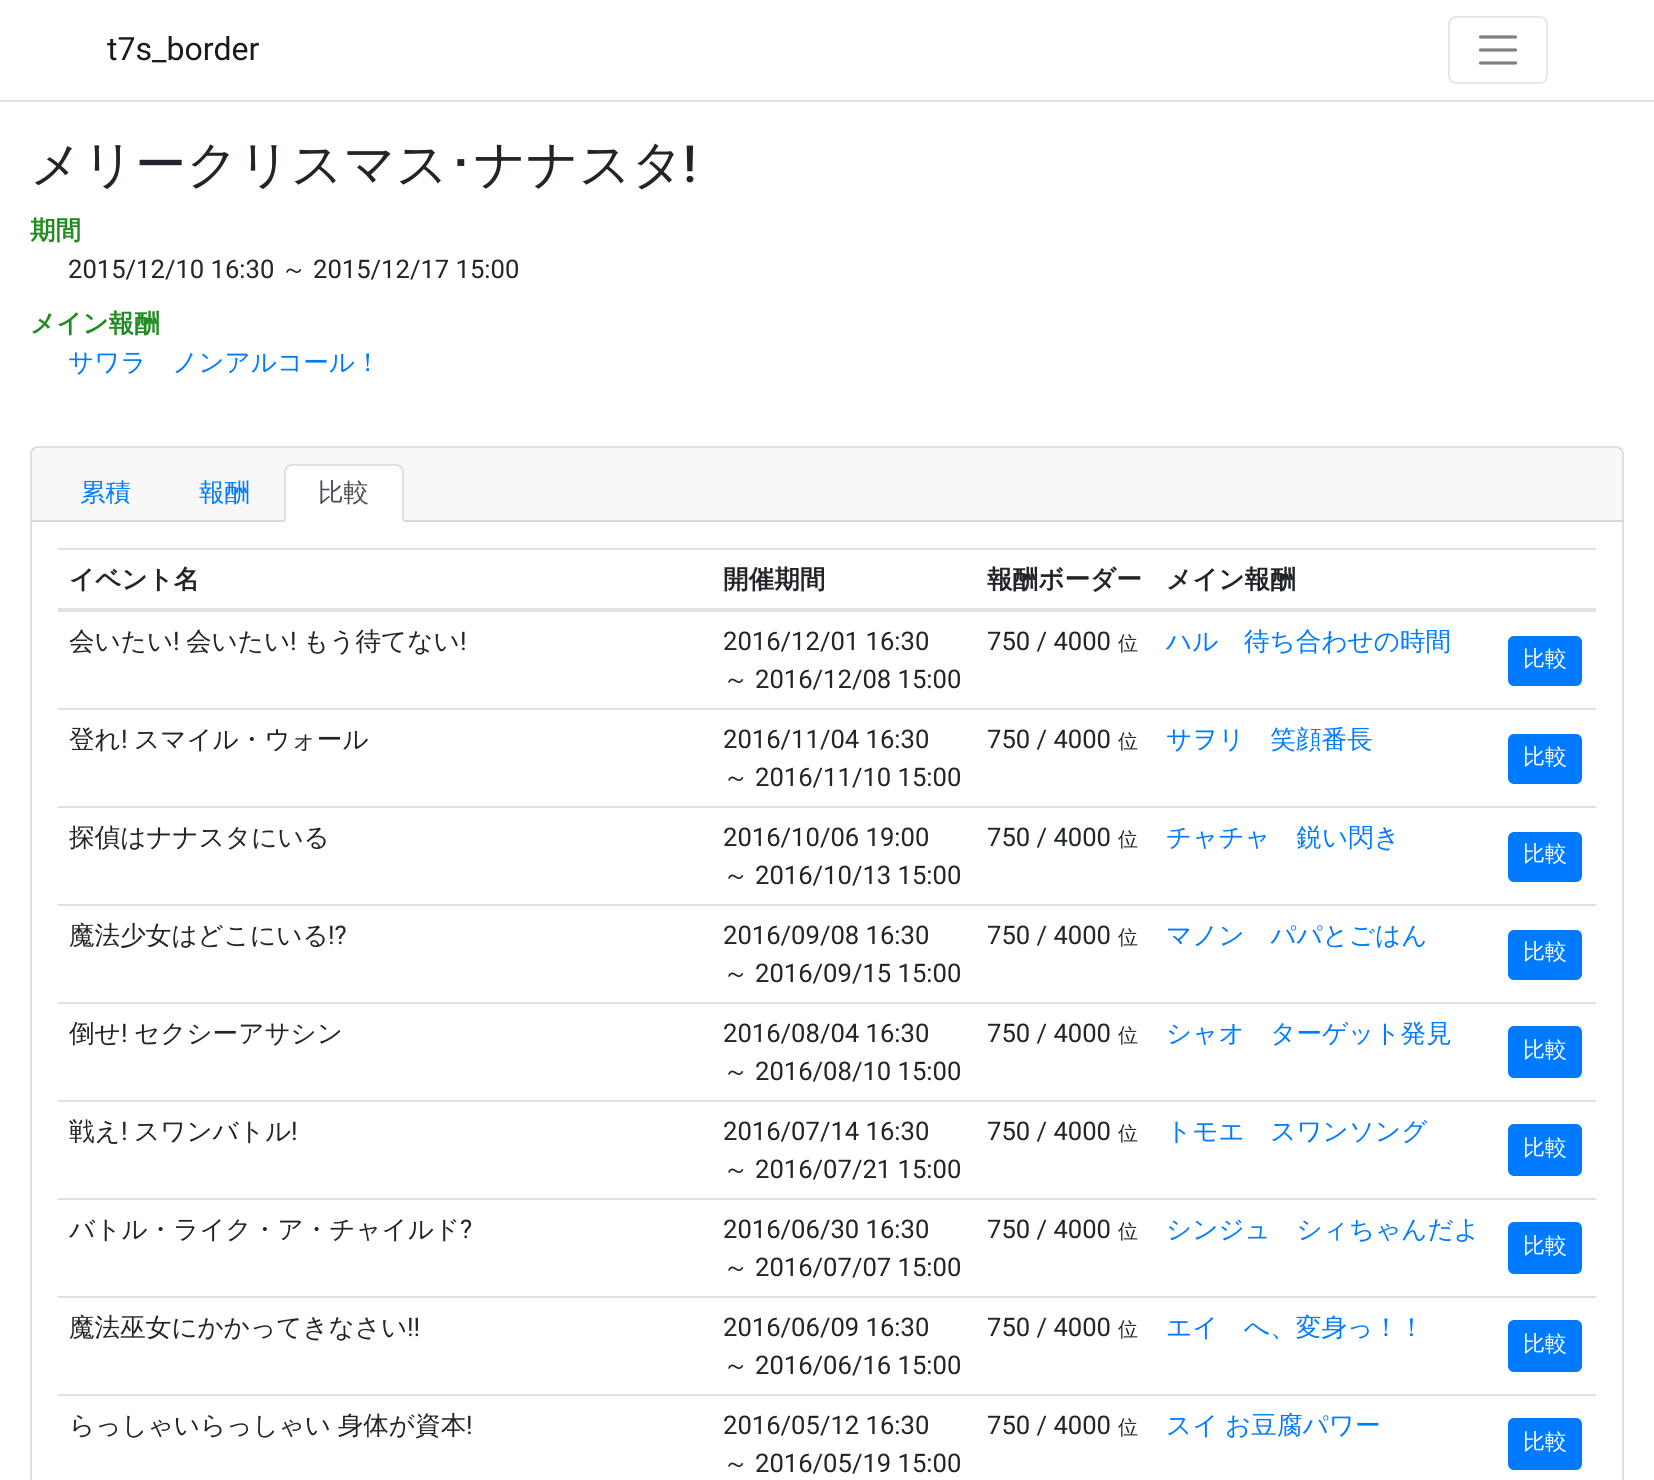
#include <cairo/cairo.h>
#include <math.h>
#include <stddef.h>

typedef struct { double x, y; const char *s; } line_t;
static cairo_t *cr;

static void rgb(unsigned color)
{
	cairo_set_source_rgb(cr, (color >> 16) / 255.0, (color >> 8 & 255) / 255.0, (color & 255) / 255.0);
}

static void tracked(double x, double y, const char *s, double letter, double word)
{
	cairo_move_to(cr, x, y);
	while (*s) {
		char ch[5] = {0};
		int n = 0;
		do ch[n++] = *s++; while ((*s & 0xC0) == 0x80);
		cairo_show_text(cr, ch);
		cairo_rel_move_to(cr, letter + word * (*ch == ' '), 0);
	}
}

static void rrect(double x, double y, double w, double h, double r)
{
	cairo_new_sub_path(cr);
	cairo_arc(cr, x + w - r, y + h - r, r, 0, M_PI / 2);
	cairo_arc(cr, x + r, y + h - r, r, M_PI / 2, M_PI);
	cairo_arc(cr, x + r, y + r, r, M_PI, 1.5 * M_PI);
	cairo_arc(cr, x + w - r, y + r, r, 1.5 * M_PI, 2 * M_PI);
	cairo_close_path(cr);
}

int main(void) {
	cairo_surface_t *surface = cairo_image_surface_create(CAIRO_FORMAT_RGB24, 1654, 1480);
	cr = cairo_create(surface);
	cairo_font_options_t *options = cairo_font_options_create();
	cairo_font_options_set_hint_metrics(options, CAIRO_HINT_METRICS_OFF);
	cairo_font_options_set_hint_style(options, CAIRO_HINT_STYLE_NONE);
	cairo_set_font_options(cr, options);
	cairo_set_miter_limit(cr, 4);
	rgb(0xffffff);
	cairo_paint(cr);
	rgb(0xdee2e6);
	cairo_rectangle(cr, 0, 100, 1654, 2);
	cairo_fill(cr);
	rrect(1449, 17, 98, 66, 7);
	rgb(0xe6e6e6);
	cairo_stroke(cr);
	cairo_new_path(cr);
	cairo_move_to(cr, 1480.5, 37);
	cairo_line_to(cr, 1515.5, 37);
	cairo_move_to(cr, 1480.5, 50);
	cairo_line_to(cr, 1515.5, 50);
	cairo_move_to(cr, 1480.5, 63);
	cairo_line_to(cr, 1515.5, 63);
	rgb(0x808080);
	cairo_set_line_width(cr, 3.2);
	cairo_set_line_cap(cr, CAIRO_LINE_CAP_ROUND);
	cairo_stroke(cr);
	rrect(31, 447, 1592, 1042, 7);
	rgb(0xdfdfdf);
	cairo_set_line_width(cr, 2);
	cairo_set_line_cap(cr, CAIRO_LINE_CAP_BUTT);
	cairo_stroke(cr);
	cairo_set_source_rgba(cr, 0, 0, 0, 0.03);
	cairo_rectangle(cr, 32, 448, 1590, 72);
	cairo_fill(cr);
	rgb(0xd8d8d8);
	cairo_rectangle(cr, 32, 520, 1590, 2);
	cairo_fill(cr);
	rgb(0xffffff);
	cairo_new_path(cr);
	cairo_move_to(cr, 292, 464);
	cairo_line_to(cr, 396, 464);
	cairo_curve_to(cr, 400.5, 464, 404, 467.5, 404, 472);
	cairo_line_to(cr, 404, 522);
	cairo_line_to(cr, 284, 522);
	cairo_line_to(cr, 284, 472);
	cairo_curve_to(cr, 284, 467.5, 287.5, 464, 292, 464);
	cairo_close_path(cr);
	cairo_fill(cr);
	rgb(0xdee2e6);
	cairo_new_path(cr);
	cairo_move_to(cr, 292, 464);
	cairo_curve_to(cr, 290, 464, 288, 465, 286, 466);
	cairo_line_to(cr, 288, 468);
	cairo_line_to(cr, 291, 466);
	cairo_line_to(cr, 397, 466);
	cairo_line_to(cr, 400, 468);
	cairo_line_to(cr, 402, 466);
	cairo_curve_to(cr, 400, 465, 398, 464, 396, 464);
	cairo_close_path(cr);
	cairo_fill(cr);
	cairo_new_path(cr);
	cairo_move_to(cr, 404, 522);
	cairo_line_to(cr, 404, 472);
	cairo_curve_to(cr, 404, 470, 403, 468, 402, 466);
	cairo_line_to(cr, 400, 468);
	cairo_curve_to(cr, 401, 469, 402, 470, 402, 472);
	cairo_line_to(cr, 402, 520);
	cairo_close_path(cr);
	cairo_fill(cr);
	rgb(0xffffff);
	cairo_new_path(cr);
	cairo_move_to(cr, 404, 522);
	cairo_line_to(cr, 402, 520);
	cairo_line_to(cr, 286, 520);
	cairo_line_to(cr, 284, 522);
	cairo_close_path(cr);
	cairo_fill(cr);
	rgb(0xdee2e6);
	cairo_new_path(cr);
	cairo_move_to(cr, 284, 522);
	cairo_line_to(cr, 286, 520);
	cairo_line_to(cr, 286, 472);
	cairo_curve_to(cr, 286, 470, 287, 469, 288, 468);
	cairo_line_to(cr, 286, 466);
	cairo_curve_to(cr, 285, 468, 284, 470, 284, 472);
	cairo_close_path(cr);
	cairo_fill(cr);
	cairo_rectangle(cr, 58, 548, 1538, 2);
	cairo_fill(cr);
	cairo_rectangle(cr, 58, 608, 1538, 4);
	cairo_fill(cr);
	rgb(0x007bff);
	rrect(1509, 637, 72, 48, 5);
	cairo_fill_preserve(cr);
	cairo_stroke(cr);
	rgb(0xdee2e6);
	cairo_rectangle(cr, 58, 708, 1538, 2);
	cairo_fill(cr);
	rgb(0x007bff);
	rrect(1509, 735, 72, 48, 5);
	cairo_fill_preserve(cr);
	cairo_stroke(cr);
	rgb(0xdee2e6);
	cairo_rectangle(cr, 58, 806, 1538, 2);
	cairo_fill(cr);
	rgb(0x007bff);
	rrect(1509, 833, 72, 48, 5);
	cairo_fill_preserve(cr);
	cairo_stroke(cr);
	rgb(0xdee2e6);
	cairo_rectangle(cr, 58, 904, 1538, 2);
	cairo_fill(cr);
	rgb(0x007bff);
	rrect(1509, 931, 72, 48, 5);
	cairo_fill_preserve(cr);
	cairo_stroke(cr);
	rgb(0xdee2e6);
	cairo_rectangle(cr, 58, 1002, 1538, 2);
	cairo_fill(cr);
	rgb(0x007bff);
	rrect(1509, 1027, 72, 50, 5);
	cairo_fill_preserve(cr);
	cairo_stroke(cr);
	rgb(0xdee2e6);
	cairo_rectangle(cr, 58, 1100, 1538, 2);
	cairo_fill(cr);
	rgb(0x007bff);
	rrect(1509, 1125, 72, 50, 5);
	cairo_fill_preserve(cr);
	cairo_stroke(cr);
	rgb(0xdee2e6);
	cairo_rectangle(cr, 58, 1198, 1538, 2);
	cairo_fill(cr);
	rgb(0x007bff);
	rrect(1509, 1223, 72, 50, 5);
	cairo_fill_preserve(cr);
	cairo_stroke(cr);
	rgb(0xdee2e6);
	cairo_rectangle(cr, 58, 1296, 1538, 2);
	cairo_fill(cr);
	rgb(0x007bff);
	rrect(1509, 1321, 72, 50, 5);
	cairo_fill_preserve(cr);
	cairo_stroke(cr);
	rgb(0xdee2e6);
	cairo_rectangle(cr, 58, 1394, 1538, 2);
	cairo_fill(cr);
	rgb(0x007bff);
	rrect(1509, 1419, 72, 50, 5);
	cairo_fill_preserve(cr);
	cairo_stroke(cr);
	cairo_select_font_face(cr, "Roboto", CAIRO_FONT_SLANT_NORMAL, CAIRO_FONT_WEIGHT_NORMAL);
	cairo_set_font_size(cr, 32);
	rgb(0x1a1a1a);
	cairo_move_to(cr, 107, 60);
	cairo_show_text(cr, "t7s_border");
	cairo_select_font_face(cr, "WenQuanYi Zen Hei Medium", CAIRO_FONT_SLANT_NORMAL, CAIRO_FONT_WEIGHT_NORMAL);
	cairo_set_font_size(cr, 51.25);
	rgb(0x212529);
	cairo_move_to(cr, 30, 182);
	cairo_show_text(cr, "メリークリスマス");
	cairo_select_font_face(cr, "IPAGothic", CAIRO_FONT_SLANT_NORMAL, CAIRO_FONT_WEIGHT_NORMAL);
	cairo_move_to(cr, 448, 182);
	cairo_show_text(cr, "･");
	cairo_select_font_face(cr, "WenQuanYi Zen Hei Medium", CAIRO_FONT_SLANT_NORMAL, CAIRO_FONT_WEIGHT_NORMAL);
	cairo_move_to(cr, 474, 182);
	cairo_show_text(cr, "ナナスタ");
	cairo_select_font_face(cr, "Roboto Medium", CAIRO_FONT_SLANT_NORMAL, CAIRO_FONT_WEIGHT_NORMAL);
	cairo_move_to(cr, 683, 182);
	cairo_show_text(cr, "!");
	cairo_select_font_face(cr, "WenQuanYi Zen Hei", CAIRO_FONT_SLANT_NORMAL, CAIRO_FONT_WEIGHT_BOLD);
	cairo_set_font_size(cr, 25.6);
	rgb(0x228b22);
	cairo_move_to(cr, 30, 239);
	cairo_show_text(cr, "期間");
	cairo_select_font_face(cr, "Roboto", CAIRO_FONT_SLANT_NORMAL, CAIRO_FONT_WEIGHT_NORMAL);
	rgb(0x212529);
	cairo_move_to(cr, 68, 278);
	cairo_show_text(cr, "2015/12/10 16:30");
	cairo_select_font_face(cr, "WenQuanYi Zen Hei Medium", CAIRO_FONT_SLANT_NORMAL, CAIRO_FONT_WEIGHT_NORMAL);
	cairo_move_to(cr, 281, 278);
	cairo_show_text(cr, "～");
	cairo_select_font_face(cr, "Roboto", CAIRO_FONT_SLANT_NORMAL, CAIRO_FONT_WEIGHT_NORMAL);
	cairo_move_to(cr, 313, 278);
	cairo_show_text(cr, "2015/12/17 15:00");
	cairo_select_font_face(cr, "WenQuanYi Zen Hei", CAIRO_FONT_SLANT_NORMAL, CAIRO_FONT_WEIGHT_BOLD);
	rgb(0x228b22);
	cairo_move_to(cr, 30, 332);
	cairo_show_text(cr, "メイン報酬");
	cairo_select_font_face(cr, "WenQuanYi Zen Hei Medium", CAIRO_FONT_SLANT_NORMAL, CAIRO_FONT_WEIGHT_NORMAL);
	rgb(0x007bff);
	{
		static const line_t items[] = {
			{68, 371, "サワラ　ノンアルコール！"},
			{80, 501, "累積"},
			{199, 501, "報酬"},
		};
		for (size_t i = 0; i < sizeof items / sizeof *items; i++) {
			cairo_move_to(cr, items[i].x, items[i].y);
			cairo_show_text(cr, items[i].s);
		}
	}
	rgb(0x495057);
	cairo_move_to(cr, 318, 501);
	cairo_show_text(cr, "比較");
	cairo_select_font_face(cr, "WenQuanYi Zen Hei", CAIRO_FONT_SLANT_NORMAL, CAIRO_FONT_WEIGHT_BOLD);
	rgb(0x212529);
	{
		static const line_t items[] = {
			{69, 588, "イベント名"},
			{723, 588, "開催期間"},
			{987, 588, "報酬ボーダー"},
			{1166, 588, "メイン報酬"},
		};
		for (size_t i = 0; i < sizeof items / sizeof *items; i++) {
			cairo_move_to(cr, items[i].x, items[i].y);
			cairo_show_text(cr, items[i].s);
		}
	}
	cairo_select_font_face(cr, "WenQuanYi Zen Hei Medium", CAIRO_FONT_SLANT_NORMAL, CAIRO_FONT_WEIGHT_NORMAL);
	cairo_move_to(cr, 69, 650);
	cairo_show_text(cr, "会いたい");
	cairo_select_font_face(cr, "Roboto", CAIRO_FONT_SLANT_NORMAL, CAIRO_FONT_WEIGHT_NORMAL);
	cairo_move_to(cr, 173, 650);
	cairo_show_text(cr, "!");
	cairo_select_font_face(cr, "WenQuanYi Zen Hei Medium", CAIRO_FONT_SLANT_NORMAL, CAIRO_FONT_WEIGHT_NORMAL);
	cairo_move_to(cr, 186, 650);
	cairo_show_text(cr, "会いたい");
	cairo_select_font_face(cr, "Roboto", CAIRO_FONT_SLANT_NORMAL, CAIRO_FONT_WEIGHT_NORMAL);
	cairo_move_to(cr, 290, 650);
	cairo_show_text(cr, "!");
	cairo_select_font_face(cr, "WenQuanYi Zen Hei Medium", CAIRO_FONT_SLANT_NORMAL, CAIRO_FONT_WEIGHT_NORMAL);
	cairo_move_to(cr, 303, 650);
	cairo_show_text(cr, "もう待てない");
	cairo_select_font_face(cr, "Roboto", CAIRO_FONT_SLANT_NORMAL, CAIRO_FONT_WEIGHT_NORMAL);
	cairo_move_to(cr, 460, 650);
	cairo_show_text(cr, "!");
	cairo_move_to(cr, 723, 650);
	cairo_show_text(cr, "2016/12/01 16:30");
	cairo_select_font_face(cr, "WenQuanYi Zen Hei Medium", CAIRO_FONT_SLANT_NORMAL, CAIRO_FONT_WEIGHT_NORMAL);
	cairo_move_to(cr, 723, 688);
	cairo_show_text(cr, "～");
	cairo_select_font_face(cr, "Roboto", CAIRO_FONT_SLANT_NORMAL, CAIRO_FONT_WEIGHT_NORMAL);
	cairo_move_to(cr, 755, 688);
	cairo_show_text(cr, "2016/12/08 15:00");
	cairo_move_to(cr, 987, 650);
	cairo_show_text(cr, "750 / 4000");
	cairo_select_font_face(cr, "WenQuanYi Zen Hei Medium", CAIRO_FONT_SLANT_NORMAL, CAIRO_FONT_WEIGHT_NORMAL);
	cairo_set_font_size(cr, 20);
	cairo_move_to(cr, 1118, 650);
	cairo_show_text(cr, "位");
	cairo_set_font_size(cr, 25.6);
	rgb(0x007bff);
	cairo_move_to(cr, 1166, 650);
	cairo_show_text(cr, "ハル　待ち合わせの時間");
	cairo_set_font_size(cr, 22);
	rgb(0xffffff);
	cairo_move_to(cr, 1523, 666);
	cairo_show_text(cr, "比較");
	cairo_set_font_size(cr, 25.6);
	rgb(0x212529);
	cairo_move_to(cr, 69, 748);
	cairo_show_text(cr, "登れ");
	cairo_select_font_face(cr, "Roboto", CAIRO_FONT_SLANT_NORMAL, CAIRO_FONT_WEIGHT_NORMAL);
	cairo_move_to(cr, 121, 748);
	cairo_show_text(cr, "!");
	cairo_select_font_face(cr, "WenQuanYi Zen Hei Medium", CAIRO_FONT_SLANT_NORMAL, CAIRO_FONT_WEIGHT_NORMAL);
	cairo_move_to(cr, 134, 748);
	cairo_show_text(cr, "スマイル・ウォール");
	cairo_select_font_face(cr, "Roboto", CAIRO_FONT_SLANT_NORMAL, CAIRO_FONT_WEIGHT_NORMAL);
	cairo_move_to(cr, 723, 748);
	cairo_show_text(cr, "2016/11/04 16:30");
	cairo_select_font_face(cr, "WenQuanYi Zen Hei Medium", CAIRO_FONT_SLANT_NORMAL, CAIRO_FONT_WEIGHT_NORMAL);
	cairo_move_to(cr, 723, 786);
	cairo_show_text(cr, "～");
	cairo_select_font_face(cr, "Roboto", CAIRO_FONT_SLANT_NORMAL, CAIRO_FONT_WEIGHT_NORMAL);
	cairo_move_to(cr, 755, 786);
	cairo_show_text(cr, "2016/11/10 15:00");
	cairo_move_to(cr, 987, 748);
	cairo_show_text(cr, "750 / 4000");
	cairo_select_font_face(cr, "WenQuanYi Zen Hei Medium", CAIRO_FONT_SLANT_NORMAL, CAIRO_FONT_WEIGHT_NORMAL);
	cairo_set_font_size(cr, 20);
	cairo_move_to(cr, 1118, 748);
	cairo_show_text(cr, "位");
	cairo_set_font_size(cr, 25.6);
	rgb(0x007bff);
	cairo_move_to(cr, 1166, 748);
	cairo_show_text(cr, "サヲリ　笑顔番長");
	cairo_set_font_size(cr, 22);
	rgb(0xffffff);
	cairo_move_to(cr, 1523, 764);
	cairo_show_text(cr, "比較");
	cairo_set_font_size(cr, 25.6);
	rgb(0x212529);
	cairo_move_to(cr, 69, 846);
	cairo_show_text(cr, "探偵はナナスタにいる");
	cairo_select_font_face(cr, "Roboto", CAIRO_FONT_SLANT_NORMAL, CAIRO_FONT_WEIGHT_NORMAL);
	cairo_move_to(cr, 723, 846);
	cairo_show_text(cr, "2016/10/06 19:00");
	cairo_select_font_face(cr, "WenQuanYi Zen Hei Medium", CAIRO_FONT_SLANT_NORMAL, CAIRO_FONT_WEIGHT_NORMAL);
	cairo_move_to(cr, 723, 884);
	cairo_show_text(cr, "～");
	cairo_select_font_face(cr, "Roboto", CAIRO_FONT_SLANT_NORMAL, CAIRO_FONT_WEIGHT_NORMAL);
	cairo_move_to(cr, 755, 884);
	cairo_show_text(cr, "2016/10/13 15:00");
	cairo_move_to(cr, 987, 846);
	cairo_show_text(cr, "750 / 4000");
	cairo_select_font_face(cr, "WenQuanYi Zen Hei Medium", CAIRO_FONT_SLANT_NORMAL, CAIRO_FONT_WEIGHT_NORMAL);
	cairo_set_font_size(cr, 20);
	cairo_move_to(cr, 1118, 846);
	cairo_show_text(cr, "位");
	cairo_set_font_size(cr, 25.6);
	rgb(0x007bff);
	cairo_move_to(cr, 1166, 846);
	cairo_show_text(cr, "チャチャ　鋭い閃き");
	cairo_set_font_size(cr, 22);
	rgb(0xffffff);
	cairo_move_to(cr, 1523, 861);
	cairo_show_text(cr, "比較");
	cairo_set_font_size(cr, 25.6);
	rgb(0x212529);
	cairo_move_to(cr, 69, 944);
	cairo_show_text(cr, "魔法少女はどこにいる");
	cairo_select_font_face(cr, "Roboto", CAIRO_FONT_SLANT_NORMAL, CAIRO_FONT_WEIGHT_NORMAL);
	cairo_move_to(cr, 328, 944);
	cairo_show_text(cr, "!?");
	cairo_move_to(cr, 723, 944);
	cairo_show_text(cr, "2016/09/08 16:30");
	cairo_select_font_face(cr, "WenQuanYi Zen Hei Medium", CAIRO_FONT_SLANT_NORMAL, CAIRO_FONT_WEIGHT_NORMAL);
	cairo_move_to(cr, 723, 982);
	cairo_show_text(cr, "～");
	cairo_select_font_face(cr, "Roboto", CAIRO_FONT_SLANT_NORMAL, CAIRO_FONT_WEIGHT_NORMAL);
	cairo_move_to(cr, 755, 982);
	cairo_show_text(cr, "2016/09/15 15:00");
	cairo_move_to(cr, 987, 944);
	cairo_show_text(cr, "750 / 4000");
	cairo_select_font_face(cr, "WenQuanYi Zen Hei Medium", CAIRO_FONT_SLANT_NORMAL, CAIRO_FONT_WEIGHT_NORMAL);
	cairo_set_font_size(cr, 20);
	cairo_move_to(cr, 1118, 944);
	cairo_show_text(cr, "位");
	cairo_set_font_size(cr, 25.6);
	rgb(0x007bff);
	cairo_move_to(cr, 1166, 944);
	cairo_show_text(cr, "マノン　パパとごはん");
	cairo_set_font_size(cr, 22);
	rgb(0xffffff);
	cairo_move_to(cr, 1523, 959);
	cairo_show_text(cr, "比較");
	cairo_set_font_size(cr, 25.6);
	rgb(0x212529);
	cairo_move_to(cr, 69, 1042);
	cairo_show_text(cr, "倒せ");
	cairo_select_font_face(cr, "Roboto", CAIRO_FONT_SLANT_NORMAL, CAIRO_FONT_WEIGHT_NORMAL);
	cairo_move_to(cr, 121, 1042);
	cairo_show_text(cr, "!");
	cairo_select_font_face(cr, "WenQuanYi Zen Hei Medium", CAIRO_FONT_SLANT_NORMAL, CAIRO_FONT_WEIGHT_NORMAL);
	cairo_move_to(cr, 134, 1042);
	cairo_show_text(cr, "セクシーアサシン");
	cairo_select_font_face(cr, "Roboto", CAIRO_FONT_SLANT_NORMAL, CAIRO_FONT_WEIGHT_NORMAL);
	cairo_move_to(cr, 723, 1042);
	cairo_show_text(cr, "2016/08/04 16:30");
	cairo_select_font_face(cr, "WenQuanYi Zen Hei Medium", CAIRO_FONT_SLANT_NORMAL, CAIRO_FONT_WEIGHT_NORMAL);
	cairo_move_to(cr, 723, 1080);
	cairo_show_text(cr, "～");
	cairo_select_font_face(cr, "Roboto", CAIRO_FONT_SLANT_NORMAL, CAIRO_FONT_WEIGHT_NORMAL);
	cairo_move_to(cr, 755, 1080);
	cairo_show_text(cr, "2016/08/10 15:00");
	cairo_move_to(cr, 987, 1042);
	cairo_show_text(cr, "750 / 4000");
	cairo_select_font_face(cr, "WenQuanYi Zen Hei Medium", CAIRO_FONT_SLANT_NORMAL, CAIRO_FONT_WEIGHT_NORMAL);
	cairo_set_font_size(cr, 20);
	cairo_move_to(cr, 1118, 1042);
	cairo_show_text(cr, "位");
	cairo_set_font_size(cr, 25.6);
	rgb(0x007bff);
	cairo_move_to(cr, 1166, 1042);
	cairo_show_text(cr, "シャオ　ターゲット発見");
	cairo_set_font_size(cr, 22);
	rgb(0xffffff);
	cairo_move_to(cr, 1523, 1057);
	cairo_show_text(cr, "比較");
	cairo_set_font_size(cr, 25.6);
	rgb(0x212529);
	cairo_move_to(cr, 69, 1140);
	cairo_show_text(cr, "戦え");
	cairo_select_font_face(cr, "Roboto", CAIRO_FONT_SLANT_NORMAL, CAIRO_FONT_WEIGHT_NORMAL);
	cairo_move_to(cr, 121, 1140);
	cairo_show_text(cr, "!");
	cairo_select_font_face(cr, "WenQuanYi Zen Hei Medium", CAIRO_FONT_SLANT_NORMAL, CAIRO_FONT_WEIGHT_NORMAL);
	cairo_move_to(cr, 134, 1140);
	cairo_show_text(cr, "スワンバトル");
	cairo_select_font_face(cr, "Roboto", CAIRO_FONT_SLANT_NORMAL, CAIRO_FONT_WEIGHT_NORMAL);
	cairo_move_to(cr, 291, 1140);
	cairo_show_text(cr, "!");
	cairo_move_to(cr, 723, 1140);
	cairo_show_text(cr, "2016/07/14 16:30");
	cairo_select_font_face(cr, "WenQuanYi Zen Hei Medium", CAIRO_FONT_SLANT_NORMAL, CAIRO_FONT_WEIGHT_NORMAL);
	cairo_move_to(cr, 723, 1178);
	cairo_show_text(cr, "～");
	cairo_select_font_face(cr, "Roboto", CAIRO_FONT_SLANT_NORMAL, CAIRO_FONT_WEIGHT_NORMAL);
	cairo_move_to(cr, 755, 1178);
	cairo_show_text(cr, "2016/07/21 15:00");
	cairo_move_to(cr, 987, 1140);
	cairo_show_text(cr, "750 / 4000");
	cairo_select_font_face(cr, "WenQuanYi Zen Hei Medium", CAIRO_FONT_SLANT_NORMAL, CAIRO_FONT_WEIGHT_NORMAL);
	cairo_set_font_size(cr, 20);
	cairo_move_to(cr, 1118, 1140);
	cairo_show_text(cr, "位");
	cairo_set_font_size(cr, 25.6);
	rgb(0x007bff);
	cairo_move_to(cr, 1166, 1140);
	cairo_show_text(cr, "トモエ　スワンソング");
	cairo_set_font_size(cr, 22);
	rgb(0xffffff);
	cairo_move_to(cr, 1523, 1155);
	cairo_show_text(cr, "比較");
	cairo_set_font_size(cr, 25.6);
	rgb(0x212529);
	cairo_move_to(cr, 69, 1238);
	cairo_show_text(cr, "バトル・ライク・ア・チャイルド");
	cairo_select_font_face(cr, "Roboto", CAIRO_FONT_SLANT_NORMAL, CAIRO_FONT_WEIGHT_NORMAL);
	cairo_move_to(cr, 460, 1238);
	cairo_show_text(cr, "?");
	cairo_move_to(cr, 723, 1238);
	cairo_show_text(cr, "2016/06/30 16:30");
	cairo_select_font_face(cr, "WenQuanYi Zen Hei Medium", CAIRO_FONT_SLANT_NORMAL, CAIRO_FONT_WEIGHT_NORMAL);
	cairo_move_to(cr, 723, 1276);
	cairo_show_text(cr, "～");
	cairo_select_font_face(cr, "Roboto", CAIRO_FONT_SLANT_NORMAL, CAIRO_FONT_WEIGHT_NORMAL);
	cairo_move_to(cr, 755, 1276);
	cairo_show_text(cr, "2016/07/07 15:00");
	cairo_move_to(cr, 987, 1238);
	cairo_show_text(cr, "750 / 4000");
	cairo_select_font_face(cr, "WenQuanYi Zen Hei Medium", CAIRO_FONT_SLANT_NORMAL, CAIRO_FONT_WEIGHT_NORMAL);
	cairo_set_font_size(cr, 20);
	cairo_move_to(cr, 1118, 1238);
	cairo_show_text(cr, "位");
	cairo_set_font_size(cr, 25.6);
	rgb(0x007bff);
	cairo_move_to(cr, 1166, 1238);
	cairo_show_text(cr, "シンジュ　シィちゃんだよ");
	cairo_set_font_size(cr, 22);
	rgb(0xffffff);
	cairo_move_to(cr, 1523, 1253);
	cairo_show_text(cr, "比較");
	cairo_set_font_size(cr, 25.6);
	rgb(0x212529);
	cairo_move_to(cr, 69, 1336);
	cairo_show_text(cr, "魔法巫女にかかってきなさい");
	cairo_select_font_face(cr, "Roboto", CAIRO_FONT_SLANT_NORMAL, CAIRO_FONT_WEIGHT_NORMAL);
	cairo_move_to(cr, 407, 1336);
	cairo_show_text(cr, "!!");
	cairo_move_to(cr, 723, 1336);
	cairo_show_text(cr, "2016/06/09 16:30");
	cairo_select_font_face(cr, "WenQuanYi Zen Hei Medium", CAIRO_FONT_SLANT_NORMAL, CAIRO_FONT_WEIGHT_NORMAL);
	cairo_move_to(cr, 723, 1374);
	cairo_show_text(cr, "～");
	cairo_select_font_face(cr, "Roboto", CAIRO_FONT_SLANT_NORMAL, CAIRO_FONT_WEIGHT_NORMAL);
	cairo_move_to(cr, 755, 1374);
	cairo_show_text(cr, "2016/06/16 15:00");
	cairo_move_to(cr, 987, 1336);
	cairo_show_text(cr, "750 / 4000");
	cairo_select_font_face(cr, "WenQuanYi Zen Hei Medium", CAIRO_FONT_SLANT_NORMAL, CAIRO_FONT_WEIGHT_NORMAL);
	cairo_set_font_size(cr, 20);
	cairo_move_to(cr, 1118, 1336);
	cairo_show_text(cr, "位");
	cairo_set_font_size(cr, 25.6);
	rgb(0x007bff);
	cairo_move_to(cr, 1166, 1336);
	cairo_show_text(cr, "エイ　へ、変身っ！！");
	cairo_set_font_size(cr, 22);
	rgb(0xffffff);
	cairo_move_to(cr, 1523, 1351);
	cairo_show_text(cr, "比較");
	cairo_set_font_size(cr, 25.6);
	rgb(0x212529);
	tracked(69, 1434, "らっしゃいらっしゃい 身体が資本", 0, -1);
	cairo_select_font_face(cr, "Roboto", CAIRO_FONT_SLANT_NORMAL, CAIRO_FONT_WEIGHT_NORMAL);
	cairo_move_to(cr, 466, 1434);
	cairo_show_text(cr, "!");
	cairo_move_to(cr, 723, 1434);
	cairo_show_text(cr, "2016/05/12 16:30");
	cairo_select_font_face(cr, "WenQuanYi Zen Hei Medium", CAIRO_FONT_SLANT_NORMAL, CAIRO_FONT_WEIGHT_NORMAL);
	cairo_move_to(cr, 723, 1472);
	cairo_show_text(cr, "～");
	cairo_select_font_face(cr, "Roboto", CAIRO_FONT_SLANT_NORMAL, CAIRO_FONT_WEIGHT_NORMAL);
	cairo_move_to(cr, 755, 1472);
	cairo_show_text(cr, "2016/05/19 15:00");
	cairo_move_to(cr, 987, 1434);
	cairo_show_text(cr, "750 / 4000");
	cairo_select_font_face(cr, "WenQuanYi Zen Hei Medium", CAIRO_FONT_SLANT_NORMAL, CAIRO_FONT_WEIGHT_NORMAL);
	cairo_set_font_size(cr, 20);
	cairo_move_to(cr, 1118, 1434);
	cairo_show_text(cr, "位");
	cairo_set_font_size(cr, 25.6);
	rgb(0x007bff);
	tracked(1166, 1434, "スイ お豆腐パワー", 0, -1);
	cairo_set_font_size(cr, 22);
	rgb(0xffffff);
	cairo_move_to(cr, 1523, 1449);
	cairo_show_text(cr, "比較");
	cairo_surface_write_to_png(surface, "page.png");
	cairo_font_options_destroy(options);
	cairo_destroy(cr);
	cairo_surface_destroy(surface);
	return 0;
}
